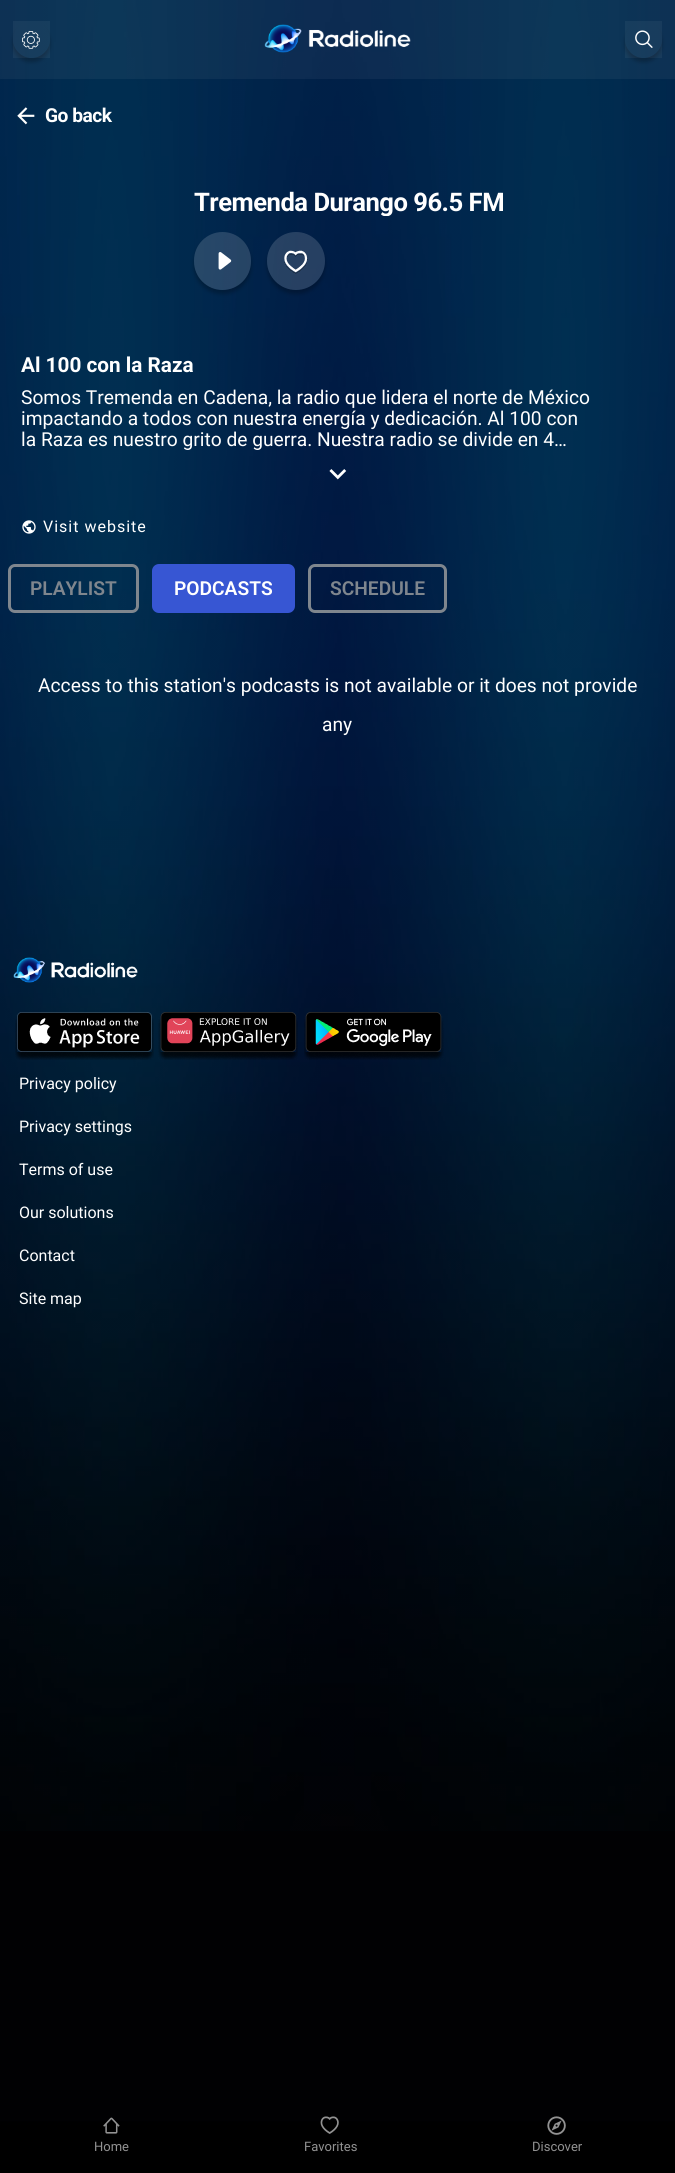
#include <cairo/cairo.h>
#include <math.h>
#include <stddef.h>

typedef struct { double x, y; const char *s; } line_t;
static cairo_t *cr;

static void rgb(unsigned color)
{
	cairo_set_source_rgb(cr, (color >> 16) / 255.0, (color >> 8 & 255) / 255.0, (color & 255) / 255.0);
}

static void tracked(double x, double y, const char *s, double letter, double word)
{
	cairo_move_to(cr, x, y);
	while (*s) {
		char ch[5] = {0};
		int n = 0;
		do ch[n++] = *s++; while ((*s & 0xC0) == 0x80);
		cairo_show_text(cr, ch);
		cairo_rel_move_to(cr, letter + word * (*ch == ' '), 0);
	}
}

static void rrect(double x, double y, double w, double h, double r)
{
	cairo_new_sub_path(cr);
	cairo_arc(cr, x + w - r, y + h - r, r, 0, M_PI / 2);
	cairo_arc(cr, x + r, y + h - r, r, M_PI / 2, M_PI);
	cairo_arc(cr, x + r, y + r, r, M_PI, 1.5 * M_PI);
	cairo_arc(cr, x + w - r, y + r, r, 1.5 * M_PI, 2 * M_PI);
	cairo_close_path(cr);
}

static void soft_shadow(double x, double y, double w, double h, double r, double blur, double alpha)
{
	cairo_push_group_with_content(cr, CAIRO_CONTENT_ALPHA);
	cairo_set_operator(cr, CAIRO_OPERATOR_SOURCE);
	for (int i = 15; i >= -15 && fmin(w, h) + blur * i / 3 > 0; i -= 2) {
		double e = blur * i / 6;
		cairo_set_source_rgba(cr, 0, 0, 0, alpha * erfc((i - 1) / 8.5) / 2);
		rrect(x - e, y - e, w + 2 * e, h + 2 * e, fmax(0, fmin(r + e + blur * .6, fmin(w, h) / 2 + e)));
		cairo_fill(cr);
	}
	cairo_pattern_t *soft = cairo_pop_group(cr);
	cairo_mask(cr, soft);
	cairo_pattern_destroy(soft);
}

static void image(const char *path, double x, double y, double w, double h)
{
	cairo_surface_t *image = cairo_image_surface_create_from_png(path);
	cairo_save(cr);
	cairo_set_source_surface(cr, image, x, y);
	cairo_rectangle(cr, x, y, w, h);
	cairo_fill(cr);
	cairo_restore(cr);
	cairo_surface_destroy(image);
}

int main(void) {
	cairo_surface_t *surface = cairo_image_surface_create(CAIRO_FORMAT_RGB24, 675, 2173);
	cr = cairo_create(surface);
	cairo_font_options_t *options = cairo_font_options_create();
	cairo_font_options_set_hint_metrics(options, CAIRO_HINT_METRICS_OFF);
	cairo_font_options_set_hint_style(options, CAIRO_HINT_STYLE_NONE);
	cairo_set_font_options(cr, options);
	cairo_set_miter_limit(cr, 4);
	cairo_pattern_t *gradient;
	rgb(0x010103);
	cairo_paint(cr);
	image("img/1.png", 0, 0, 675, 1831);
	cairo_set_source_rgba(cr, 1, 1, 1, 0.05);
	cairo_rectangle(cr, 0, 0, 675, 79);
	cairo_fill(cr);
	cairo_save(cr);
	cairo_set_fill_rule(cr, CAIRO_FILL_RULE_EVEN_ODD);
	cairo_new_path(cr);
	cairo_move_to(cr, 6, 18);
	cairo_line_to(cr, 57, 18);
	cairo_line_to(cr, 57, 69);
	cairo_line_to(cr, 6, 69);
	cairo_close_path(cr);
	cairo_move_to(cr, 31.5, 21);
	cairo_curve_to(cr, 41.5, 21, 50, 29.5, 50, 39.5);
	cairo_curve_to(cr, 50, 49.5, 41.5, 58, 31.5, 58);
	cairo_curve_to(cr, 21.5, 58, 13, 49.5, 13, 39.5);
	cairo_curve_to(cr, 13, 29.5, 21.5, 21, 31.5, 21);
	cairo_close_path(cr);
	cairo_clip(cr);
	rgb(0x000000);
	soft_shadow(13, 25, 37, 37, 18.5, 2, 0.25);
	cairo_restore(cr);
	cairo_rectangle(cr, 13, 21, 37, 37);
	cairo_fill(cr);
	image("img/2.png", 22, 31, 18, 18);
	image("img/3.png", 264, 24, 147, 29);
	cairo_save(cr);
	cairo_set_fill_rule(cr, CAIRO_FILL_RULE_EVEN_ODD);
	cairo_new_path(cr);
	cairo_move_to(cr, 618, 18);
	cairo_line_to(cr, 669, 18);
	cairo_line_to(cr, 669, 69);
	cairo_line_to(cr, 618, 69);
	cairo_close_path(cr);
	cairo_move_to(cr, 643.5, 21);
	cairo_curve_to(cr, 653.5, 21, 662, 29.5, 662, 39.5);
	cairo_curve_to(cr, 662, 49.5, 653.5, 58, 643.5, 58);
	cairo_curve_to(cr, 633.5, 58, 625, 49.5, 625, 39.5);
	cairo_curve_to(cr, 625, 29.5, 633.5, 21, 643.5, 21);
	cairo_close_path(cr);
	cairo_clip(cr);
	rgb(0x000000);
	soft_shadow(625, 25, 37, 37, 18.5, 2, 0.25);
	cairo_restore(cr);
	cairo_rectangle(cr, 625, 21, 37, 37);
	cairo_fill(cr);
	image("img/4.png", 635, 30, 18, 18);
	image("img/5.png", 17, 107, 18, 18);
	cairo_save(cr);
	cairo_set_fill_rule(cr, CAIRO_FILL_RULE_EVEN_ODD);
	cairo_new_path(cr);
	cairo_move_to(cr, 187, 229);
	cairo_line_to(cr, 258, 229);
	cairo_line_to(cr, 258, 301);
	cairo_line_to(cr, 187, 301);
	cairo_close_path(cr);
	cairo_move_to(cr, 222.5, 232);
	cairo_curve_to(cr, 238, 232, 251, 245, 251, 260.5);
	cairo_line_to(cr, 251, 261.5);
	cairo_curve_to(cr, 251, 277, 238, 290, 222.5, 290);
	cairo_curve_to(cr, 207, 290, 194, 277, 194, 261.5);
	cairo_line_to(cr, 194, 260.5);
	cairo_curve_to(cr, 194, 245, 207, 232, 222.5, 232);
	cairo_close_path(cr);
	cairo_clip(cr);
	rgb(0x000000);
	soft_shadow(194, 236, 57, 58, 28.5, 2, 0.25);
	cairo_restore(cr);
	cairo_set_source_rgba(cr, 1, 1, 1, 0.15);
	rrect(194, 232, 57, 58, 28.5);
	cairo_fill(cr);
	image("img/6.png", 218, 252, 14, 18);
	cairo_save(cr);
	cairo_set_fill_rule(cr, CAIRO_FILL_RULE_EVEN_ODD);
	cairo_new_path(cr);
	cairo_move_to(cr, 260, 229);
	cairo_line_to(cr, 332, 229);
	cairo_line_to(cr, 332, 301);
	cairo_line_to(cr, 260, 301);
	cairo_close_path(cr);
	cairo_move_to(cr, 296, 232);
	cairo_curve_to(cr, 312, 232, 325, 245, 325, 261);
	cairo_curve_to(cr, 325, 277, 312, 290, 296, 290);
	cairo_curve_to(cr, 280, 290, 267, 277, 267, 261);
	cairo_curve_to(cr, 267, 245, 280, 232, 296, 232);
	cairo_close_path(cr);
	cairo_clip(cr);
	rgb(0x000000);
	soft_shadow(267, 236, 58, 58, 29, 2, 0.25);
	cairo_restore(cr);
	cairo_arc(cr, 296, 261, 29, 0, 2 * M_PI);
	cairo_fill(cr);
	image("img/7.png", 284, 250, 24, 24);
	image("img/8.png", 329, 469, 18, 11);
	image("img/9.png", 22, 520, 14, 14);
	rrect(9.5, 565.5, 128, 46, 5.5);
	rgb(0x7f868e);
	cairo_set_line_width(cr, 3);
	cairo_stroke(cr);
	rgb(0x3756d3);
	rrect(153.5, 565.5, 140, 46, 5.5);
	cairo_fill_preserve(cr);
	cairo_stroke(cr);
	rrect(309.5, 565.5, 136, 46, 5.5);
	rgb(0x7f868e);
	cairo_stroke(cr);
	image("img/10.png", 13, 957, 125, 26);
	image("img/11.png", 15, 1012, 139, 48);
	image("img/12.png", 158, 1012, 140, 48);
	image("img/13.png", 304, 1012, 140, 48);
	gradient = cairo_pattern_create_linear(338, 2061, 338, 2173);
	cairo_pattern_add_color_stop_rgba(gradient, 0, 0.004, 0.004, 0.012, 1);
	cairo_pattern_add_color_stop_rgba(gradient, 0.09, 0.004, 0.004, 0.012, 1);
	cairo_pattern_add_color_stop_rgba(gradient, 0.12, 0.004, 0.004, 0.008, 1);
	cairo_pattern_add_color_stop_rgba(gradient, 0.23, 0.004, 0.004, 0.008, 1);
	cairo_pattern_add_color_stop_rgba(gradient, 0.28, 0, 0, 0.004, 1);
	cairo_pattern_add_color_stop_rgba(gradient, 0.49, 0, 0, 0.004, 1);
	cairo_pattern_add_color_stop_rgba(gradient, 0.59, 0, 0, 0, 1);
	cairo_pattern_add_color_stop_rgba(gradient, 1, 0, 0, 0, 1);
	cairo_set_source(cr, gradient);
	cairo_pattern_destroy(gradient);
	cairo_rectangle(cr, 0, 2121, 675, 52);
	cairo_fill(cr);
	image("img/14.png", 103, 2117, 17, 17);
	image("img/15.png", 320, 2116, 19, 18);
	image("img/16.png", 547, 2116, 19, 19);
	cairo_select_font_face(cr, "Roboto", CAIRO_FONT_SLANT_NORMAL, CAIRO_FONT_WEIGHT_BOLD);
	cairo_set_font_size(cr, 19.2);
	rgb(0xffffff);
	tracked(45, 122, "Go back", -0.5, 0);
	cairo_save(cr);
	cairo_rectangle(cr, 194, 188, 309, 28);
	cairo_clip(cr);
	cairo_set_font_size(cr, 25.6);
	tracked(194, 211, "Tremenda Durango 96.5 FM", -0.5, 0);
	cairo_restore(cr);
	cairo_set_font_size(cr, 20.75);
	cairo_move_to(cr, 21, 372);
	cairo_show_text(cr, "Al 100 con la Raza");
	cairo_select_font_face(cr, "Roboto", CAIRO_FONT_SLANT_NORMAL, CAIRO_FONT_WEIGHT_NORMAL);
	cairo_set_font_size(cr, 19.2);
	{
		static const line_t items[] = {
			{21, 404, "Somos Tremenda en Cadena, la radio que lidera el norte de México"},
			{21, 425, "impactando a todos con nuestra energía y dedicación. Al 100 con"},
			{21, 446, "la Raza es nuestro grito de guerra. Nuestra radio se divide en 4…"},
		};
		for (size_t i = 0; i < sizeof items / sizeof *items; i++) {
			cairo_move_to(cr, items[i].x, items[i].y);
			cairo_show_text(cr, items[i].s);
		}
	}
	cairo_set_font_size(cr, 16);
	tracked(43, 532, "Visit website", 1, 0);
	cairo_select_font_face(cr, "Roboto SemiBold", CAIRO_FONT_SLANT_NORMAL, CAIRO_FONT_WEIGHT_NORMAL);
	cairo_set_font_size(cr, 19.2);
	rgb(0x7f868e);
	cairo_move_to(cr, 30, 595);
	cairo_show_text(cr, "PLAYLIST");
	rgb(0xffffff);
	cairo_move_to(cr, 174, 595);
	cairo_show_text(cr, "PODCASTS");
	rgb(0x7f868e);
	cairo_move_to(cr, 330, 595);
	cairo_show_text(cr, "SCHEDULE");
	cairo_select_font_face(cr, "Roboto", CAIRO_FONT_SLANT_NORMAL, CAIRO_FONT_WEIGHT_NORMAL);
	rgb(0xffffff);
	cairo_move_to(cr, 38, 692);
	cairo_show_text(cr, "Access to this station's podcasts is not available or it does not provide");
	cairo_move_to(cr, 322, 731);
	cairo_show_text(cr, "any");
	cairo_set_font_size(cr, 16);
	{
		static const line_t items[] = {
			{19, 1089, "Privacy policy"},
			{19, 1132, "Privacy settings"},
			{19, 1175, "Terms of use"},
			{19, 1218, "Our solutions"},
			{19, 1261, "Contact"},
			{19, 1304, "Site map"},
		};
		for (size_t i = 0; i < sizeof items / sizeof *items; i++) {
			cairo_move_to(cr, items[i].x, items[i].y);
			cairo_show_text(cr, items[i].s);
		}
	}
	cairo_set_font_size(cr, 13);
	rgb(0x929292);
	{
		static const line_t items[] = {
			{94, 2151, "Home"},
			{304, 2151, "Favorites"},
			{532, 2151, "Discover"},
		};
		for (size_t i = 0; i < sizeof items / sizeof *items; i++) {
			cairo_move_to(cr, items[i].x, items[i].y);
			cairo_show_text(cr, items[i].s);
		}
	}
	cairo_surface_write_to_png(surface, "page.png");
	cairo_font_options_destroy(options);
	cairo_destroy(cr);
	cairo_surface_destroy(surface);
	return 0;
}
